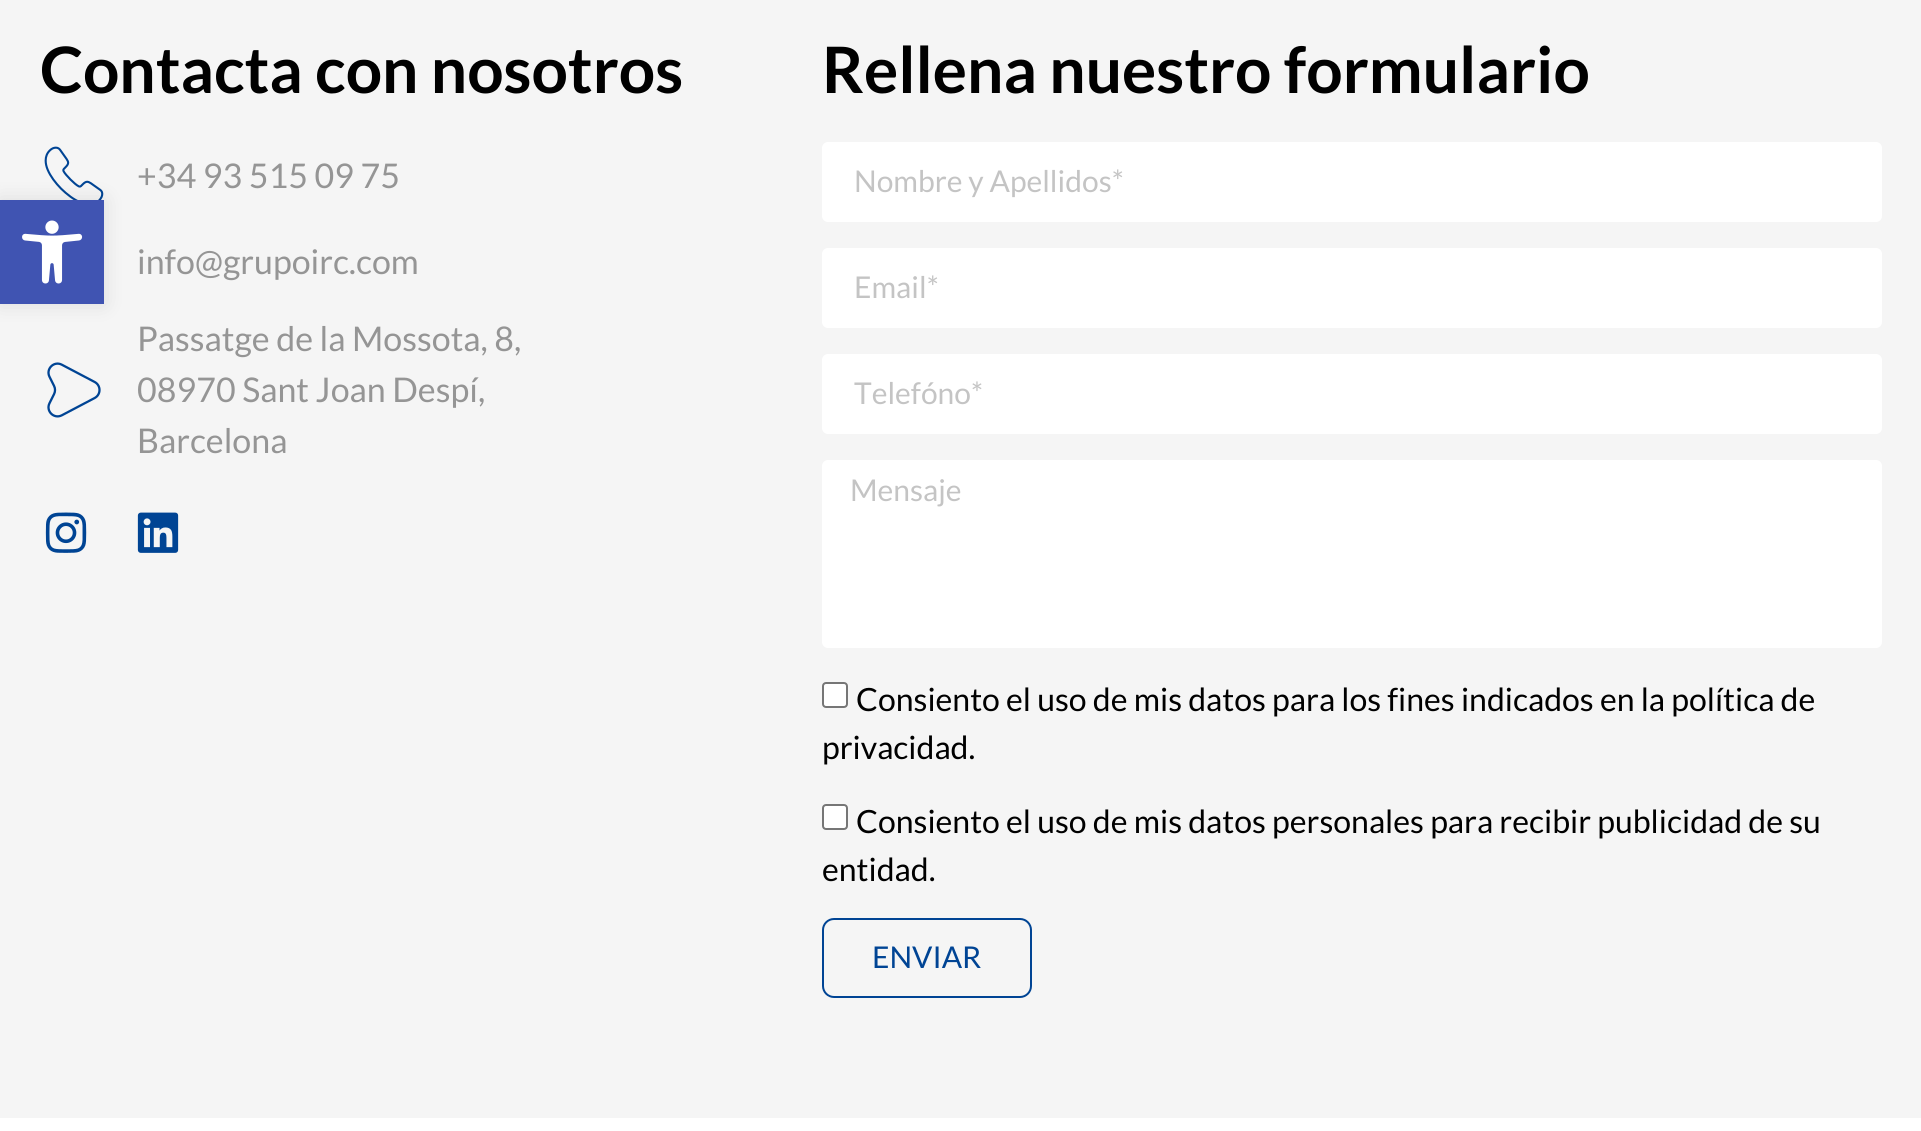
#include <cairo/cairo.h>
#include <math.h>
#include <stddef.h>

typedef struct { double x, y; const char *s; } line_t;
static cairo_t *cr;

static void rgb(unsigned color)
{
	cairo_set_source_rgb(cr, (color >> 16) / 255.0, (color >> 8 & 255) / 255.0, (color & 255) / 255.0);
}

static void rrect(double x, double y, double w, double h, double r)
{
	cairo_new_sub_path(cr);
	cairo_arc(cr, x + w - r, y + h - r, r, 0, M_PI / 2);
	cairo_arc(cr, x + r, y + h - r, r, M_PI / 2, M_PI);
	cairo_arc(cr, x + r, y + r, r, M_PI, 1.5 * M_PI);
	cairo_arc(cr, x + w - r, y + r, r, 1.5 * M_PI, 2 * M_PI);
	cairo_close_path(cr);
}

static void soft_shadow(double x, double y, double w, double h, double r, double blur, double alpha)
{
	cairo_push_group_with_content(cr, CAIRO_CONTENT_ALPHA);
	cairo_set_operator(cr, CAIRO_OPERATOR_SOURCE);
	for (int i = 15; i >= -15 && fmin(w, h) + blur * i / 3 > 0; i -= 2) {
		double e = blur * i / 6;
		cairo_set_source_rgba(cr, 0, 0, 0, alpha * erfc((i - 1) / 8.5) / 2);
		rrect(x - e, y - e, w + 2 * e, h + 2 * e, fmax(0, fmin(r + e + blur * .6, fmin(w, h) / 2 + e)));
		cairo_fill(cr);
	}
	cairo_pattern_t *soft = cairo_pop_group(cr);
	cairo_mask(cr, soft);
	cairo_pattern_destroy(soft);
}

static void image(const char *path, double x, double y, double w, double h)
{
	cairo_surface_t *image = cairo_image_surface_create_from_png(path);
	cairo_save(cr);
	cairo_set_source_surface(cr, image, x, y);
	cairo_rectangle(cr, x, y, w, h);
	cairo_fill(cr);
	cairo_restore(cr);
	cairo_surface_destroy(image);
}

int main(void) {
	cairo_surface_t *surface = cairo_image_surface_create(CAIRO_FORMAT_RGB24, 1921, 1131);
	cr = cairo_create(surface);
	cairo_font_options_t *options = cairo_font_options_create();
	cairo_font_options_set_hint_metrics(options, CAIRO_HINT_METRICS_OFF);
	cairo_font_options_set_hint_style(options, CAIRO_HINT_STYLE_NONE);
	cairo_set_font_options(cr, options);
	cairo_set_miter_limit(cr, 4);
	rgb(0xffffff);
	cairo_paint(cr);
	rgb(0xf5f5f5);
	cairo_rectangle(cr, 0, 0, 1921, 1118);
	cairo_fill(cr);
	image("img/1.png", 44, 146, 60, 54);
	image("img/2.png", 47, 362, 54, 56);
	image("img/3.png", 45, 512, 42, 41);
	image("img/4.png", 137, 512, 42, 41);
	rgb(0xffffff);
	rrect(822, 142, 1060, 80, 6);
	cairo_fill(cr);
	rrect(822, 248, 1060, 80, 6);
	cairo_fill(cr);
	rrect(822, 354, 1060, 80, 6);
	cairo_fill(cr);
	rrect(822, 460, 1060, 188, 6);
	cairo_fill(cr);
	rrect(823, 683, 24, 24, 3);
	cairo_fill_preserve(cr);
	rgb(0x767676);
	cairo_stroke(cr);
	rgb(0xffffff);
	rrect(823, 805, 24, 24, 3);
	cairo_fill_preserve(cr);
	rgb(0x767676);
	cairo_stroke(cr);
	rrect(823, 919, 208, 78, 11);
	rgb(0x004494);
	cairo_stroke(cr);
	rgb(0x000000);
	soft_shadow(0, 200, 104, 104, 0, 10, 0.1);
	rgb(0x4054b2);
	cairo_rectangle(cr, 0, 200, 104, 104);
	cairo_fill(cr);
	image("img/5.png", 22, 220, 61, 64);
	cairo_select_font_face(cr, "Lato", CAIRO_FONT_SLANT_NORMAL, CAIRO_FONT_WEIGHT_BOLD);
	cairo_set_font_size(cr, 64);
	rgb(0x000000);
	cairo_move_to(cr, 40, 93);
	cairo_show_text(cr, "Contacta con nosotros");
	cairo_select_font_face(cr, "Lato", CAIRO_FONT_SLANT_NORMAL, CAIRO_FONT_WEIGHT_NORMAL);
	cairo_set_font_size(cr, 34);
	rgb(0x959595);
	{
		static const line_t items[] = {
			{137, 188, "+34 93 515 09 75"},
			{137, 274, "info@grupoirc.com"},
			{137, 351, "Passatge de la Mossota, 8,"},
			{137, 402, "08970 Sant Joan Despí,"},
			{137, 453, "Barcelona"},
		};
		for (size_t i = 0; i < sizeof items / sizeof *items; i++) {
			cairo_move_to(cr, items[i].x, items[i].y);
			cairo_show_text(cr, items[i].s);
		}
	}
	cairo_select_font_face(cr, "Lato", CAIRO_FONT_SLANT_NORMAL, CAIRO_FONT_WEIGHT_BOLD);
	cairo_set_font_size(cr, 64);
	rgb(0x000000);
	cairo_move_to(cr, 822, 93);
	cairo_show_text(cr, "Rellena nuestro formulario");
	cairo_select_font_face(cr, "Lato", CAIRO_FONT_SLANT_NORMAL, CAIRO_FONT_WEIGHT_NORMAL);
	cairo_set_font_size(cr, 30);
	rgb(0xc4c4c4);
	{
		static const line_t items[] = {
			{854, 192, "Nombre y Apellidos*"},
			{854, 298, "Email*"},
			{854, 404, "Telefóno*"},
			{850, 501, "Mensaje"},
		};
		for (size_t i = 0; i < sizeof items / sizeof *items; i++) {
			cairo_move_to(cr, items[i].x, items[i].y);
			cairo_show_text(cr, items[i].s);
		}
	}
	cairo_set_font_size(cr, 32);
	rgb(0x000000);
	{
		static const line_t items[] = {
			{856, 711, "Consiento el uso de mis datos para los fines indicados en la política de"},
			{822, 759, "privacidad."},
			{856, 833, "Consiento el uso de mis datos personales para recibir publicidad de su"},
			{822, 881, "entidad."},
		};
		for (size_t i = 0; i < sizeof items / sizeof *items; i++) {
			cairo_move_to(cr, items[i].x, items[i].y);
			cairo_show_text(cr, items[i].s);
		}
	}
	cairo_set_font_size(cr, 30);
	rgb(0x004494);
	cairo_move_to(cr, 872, 968);
	cairo_show_text(cr, "ENVIAR");
	cairo_surface_write_to_png(surface, "page.png");
	cairo_font_options_destroy(options);
	cairo_destroy(cr);
	cairo_surface_destroy(surface);
	return 0;
}
